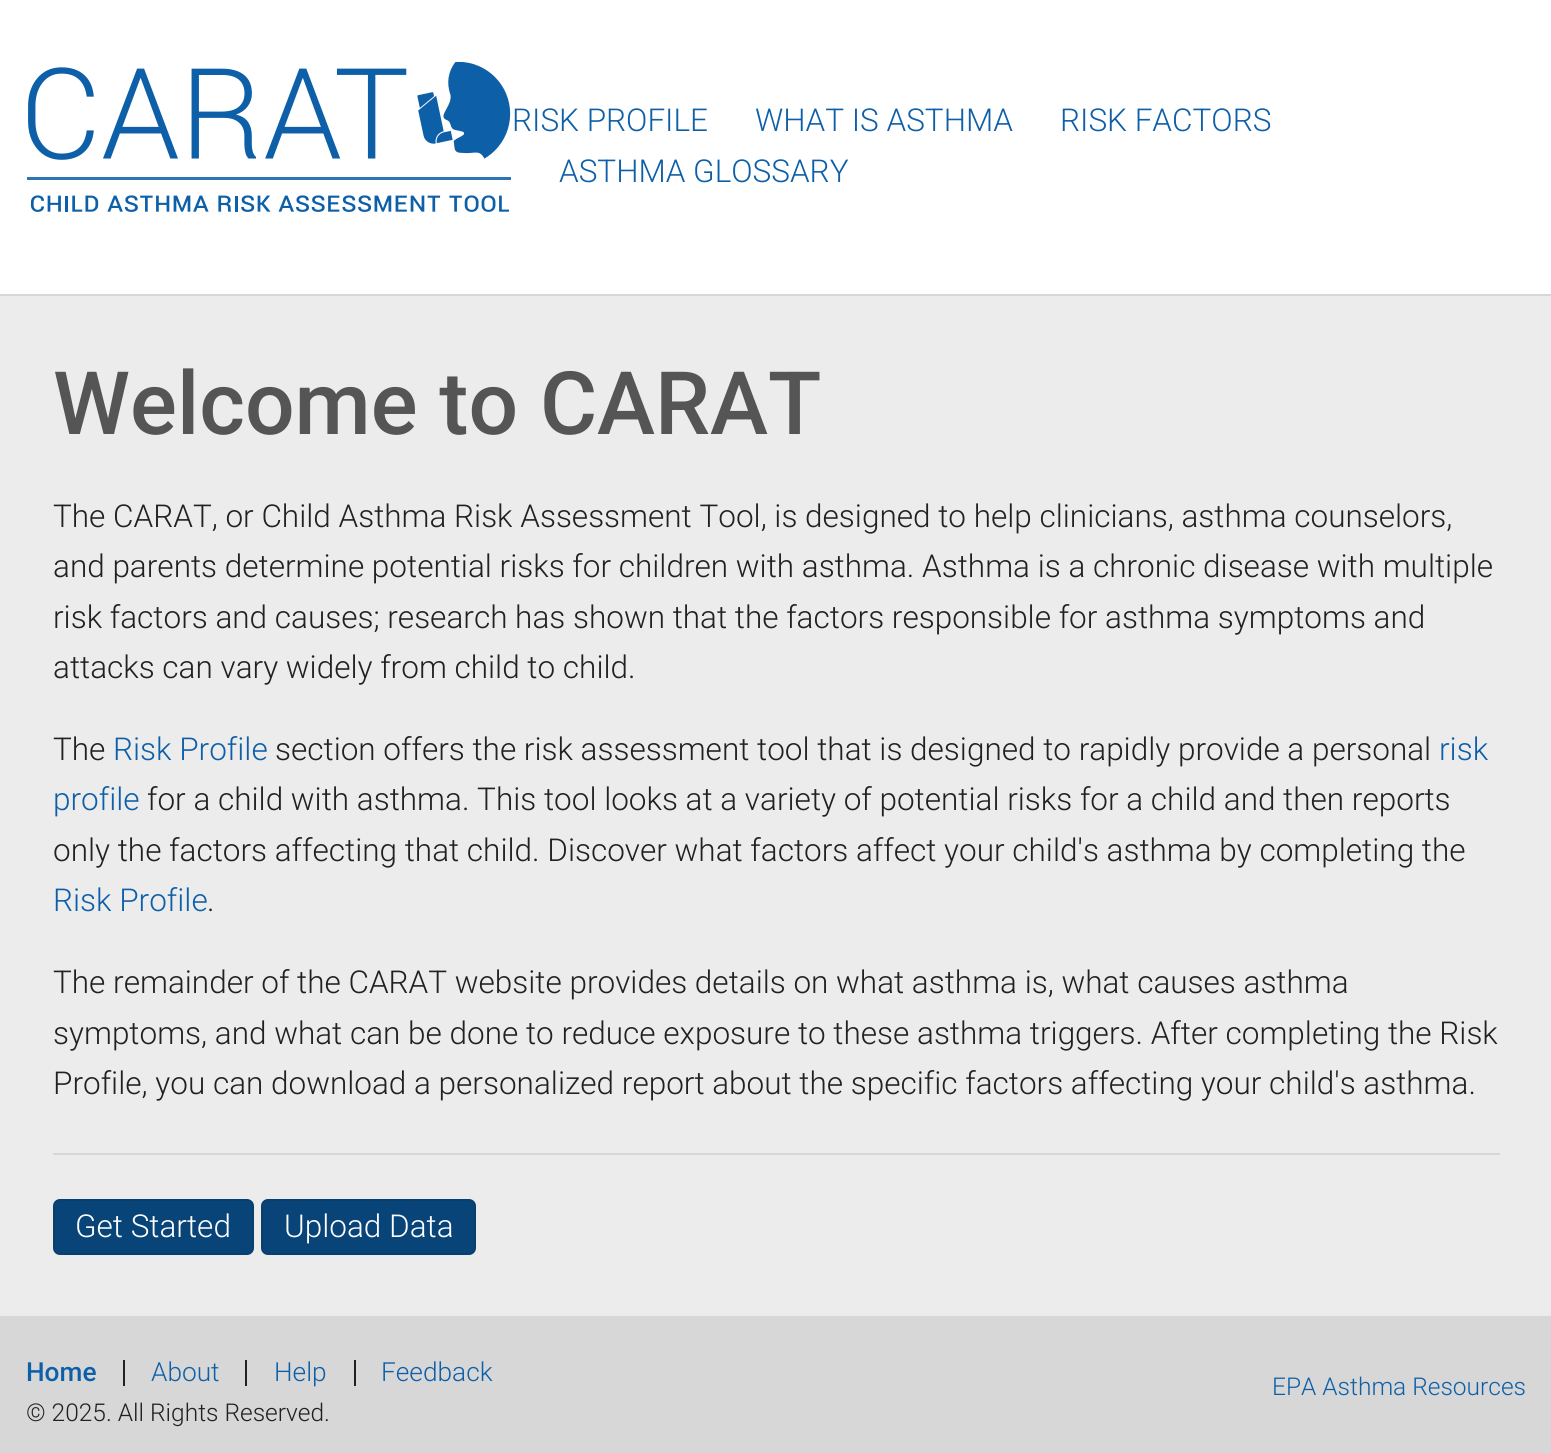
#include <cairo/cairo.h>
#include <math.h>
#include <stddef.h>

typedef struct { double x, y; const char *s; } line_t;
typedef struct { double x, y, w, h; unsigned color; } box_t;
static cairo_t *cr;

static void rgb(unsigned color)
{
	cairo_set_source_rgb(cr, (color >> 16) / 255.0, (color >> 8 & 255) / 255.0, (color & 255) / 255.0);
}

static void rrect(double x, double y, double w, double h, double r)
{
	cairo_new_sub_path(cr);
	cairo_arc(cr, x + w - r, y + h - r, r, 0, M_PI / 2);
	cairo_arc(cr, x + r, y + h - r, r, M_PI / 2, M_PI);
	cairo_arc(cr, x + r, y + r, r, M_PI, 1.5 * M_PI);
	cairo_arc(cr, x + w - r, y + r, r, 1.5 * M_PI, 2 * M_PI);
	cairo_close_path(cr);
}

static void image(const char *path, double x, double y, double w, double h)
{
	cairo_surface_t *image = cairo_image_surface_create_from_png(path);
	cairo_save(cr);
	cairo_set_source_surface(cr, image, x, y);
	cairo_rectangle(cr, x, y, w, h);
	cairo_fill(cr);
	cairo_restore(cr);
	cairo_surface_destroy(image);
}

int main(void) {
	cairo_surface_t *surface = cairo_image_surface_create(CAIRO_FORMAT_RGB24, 1551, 1453);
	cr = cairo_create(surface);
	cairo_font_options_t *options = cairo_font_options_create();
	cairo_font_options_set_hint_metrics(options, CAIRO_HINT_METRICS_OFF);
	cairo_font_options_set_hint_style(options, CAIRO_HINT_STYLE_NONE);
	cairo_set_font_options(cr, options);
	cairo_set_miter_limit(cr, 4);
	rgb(0xececec);
	cairo_paint(cr);
	rgb(0xffffff);
	cairo_rectangle(cr, 0, 0, 1551, 294);
	cairo_fill(cr);
	rgb(0xd7d7d7);
	cairo_rectangle(cr, 0, 294, 1551, 2);
	cairo_fill(cr);
	image("img/1.png", 27, 61, 484, 151);
	cairo_rectangle(cr, 53, 1153, 1447, 2);
	cairo_fill(cr);
	rgb(0x094479);
	rrect(54, 1200, 199, 54, 6);
	cairo_fill_preserve(cr);
	rgb(0x093f6f);
	cairo_stroke(cr);
	rgb(0x094479);
	rrect(262, 1200, 213, 54, 6);
	cairo_fill_preserve(cr);
	rgb(0x093f6f);
	cairo_stroke(cr);
	{
		static const box_t items[] = {
			{0, 1316, 1551, 137, 0xd7d7d7},
			{123, 1360, 2, 26, 0x212121},
			{245, 1360, 2, 26, 0x212121},
			{354, 1360, 2, 26, 0x212121},
		};
		for (size_t i = 0; i < sizeof items / sizeof *items; i++) {
			rgb(items[i].color);
			cairo_rectangle(cr, items[i].x, items[i].y, items[i].w, items[i].h);
			cairo_fill(cr);
		}
	}
	cairo_select_font_face(cr, "Roboto Light", CAIRO_FONT_SLANT_NORMAL, CAIRO_FONT_WEIGHT_NORMAL);
	cairo_set_font_size(cr, 31.5);
	rgb(0x0d5fa8);
	{
		static const line_t items[] = {
			{512, 131, "RISK PROFILE"},
			{755, 131, "WHAT IS ASTHMA"},
			{1060, 131, "RISK FACTORS"},
			{559, 182, "ASTHMA GLOSSARY"},
		};
		for (size_t i = 0; i < sizeof items / sizeof *items; i++) {
			cairo_move_to(cr, items[i].x, items[i].y);
			cairo_show_text(cr, items[i].s);
		}
	}
	cairo_select_font_face(cr, "Roboto Medium", CAIRO_FONT_SLANT_NORMAL, CAIRO_FONT_WEIGHT_NORMAL);
	cairo_set_font_size(cr, 87.5);
	rgb(0x555555);
	cairo_move_to(cr, 53, 434);
	cairo_show_text(cr, "Welcome to CARAT");
	cairo_select_font_face(cr, "Roboto Light", CAIRO_FONT_SLANT_NORMAL, CAIRO_FONT_WEIGHT_NORMAL);
	cairo_set_font_size(cr, 31.5);
	rgb(0x212121);
	{
		static const line_t items[] = {
			{53, 527, "The CARAT, or Child Asthma Risk Assessment Tool, is designed to help clinicians, asthma counselors,"},
			{53, 577, "and parents determine potential risks for children with asthma. Asthma is a chronic disease with multiple"},
			{53, 628, "risk factors and causes; research has shown that the factors responsible for asthma symptoms and"},
			{53, 678, "attacks can vary widely from child to child."},
			{53, 760, "The"},
		};
		for (size_t i = 0; i < sizeof items / sizeof *items; i++) {
			cairo_move_to(cr, items[i].x, items[i].y);
			cairo_show_text(cr, items[i].s);
		}
	}
	rgb(0x0d5fa8);
	cairo_move_to(cr, 113, 760);
	cairo_show_text(cr, "Risk Profile");
	rgb(0x212121);
	cairo_move_to(cr, 275, 760);
	cairo_show_text(cr, "section offers the risk assessment tool that is designed to rapidly provide a personal");
	rgb(0x0d5fa8);
	cairo_move_to(cr, 1439, 760);
	cairo_show_text(cr, "risk");
	cairo_move_to(cr, 53, 810);
	cairo_show_text(cr, "profile");
	rgb(0x212121);
	cairo_move_to(cr, 147, 810);
	cairo_show_text(cr, "for a child with asthma. This tool looks at a variety of potential risks for a child and then reports");
	cairo_move_to(cr, 53, 861);
	cairo_show_text(cr, "only the factors affecting that child. Discover what factors affect your child's asthma by completing the");
	rgb(0x0d5fa8);
	cairo_move_to(cr, 53, 911);
	cairo_show_text(cr, "Risk Profile");
	rgb(0x212121);
	{
		static const line_t items[] = {
			{207, 911, "."},
			{53, 993, "The remainder of the CARAT website provides details on what asthma is, what causes asthma"},
			{53, 1044, "symptoms, and what can be done to reduce exposure to these asthma triggers. After completing the Risk"},
			{53, 1094, "Profile, you can download a personalized report about the specific factors affecting your child's asthma."},
		};
		for (size_t i = 0; i < sizeof items / sizeof *items; i++) {
			cairo_move_to(cr, items[i].x, items[i].y);
			cairo_show_text(cr, items[i].s);
		}
	}
	rgb(0xffffff);
	cairo_move_to(cr, 75, 1237);
	cairo_show_text(cr, "Get Started");
	cairo_move_to(cr, 284, 1237);
	cairo_show_text(cr, "Upload Data");
	cairo_select_font_face(cr, "Roboto Medium", CAIRO_FONT_SLANT_NORMAL, CAIRO_FONT_WEIGHT_NORMAL);
	cairo_set_font_size(cr, 26.25);
	rgb(0x0d5fa8);
	cairo_move_to(cr, 26, 1381);
	cairo_show_text(cr, "Home");
	cairo_select_font_face(cr, "Roboto Light", CAIRO_FONT_SLANT_NORMAL, CAIRO_FONT_WEIGHT_NORMAL);
	{
		static const line_t items[] = {
			{151, 1381, "About"},
			{274, 1381, "Help"},
			{381, 1381, "Feedback"},
		};
		for (size_t i = 0; i < sizeof items / sizeof *items; i++) {
			cairo_move_to(cr, items[i].x, items[i].y);
			cairo_show_text(cr, items[i].s);
		}
	}
	cairo_set_font_size(cr, 24.5);
	rgb(0x212121);
	cairo_move_to(cr, 26, 1421);
	cairo_show_text(cr, "© 2025. All Rights Reserved.");
	rgb(0x0d5fa8);
	cairo_move_to(cr, 1272, 1395);
	cairo_show_text(cr, "EPA Asthma Resources");
	cairo_surface_write_to_png(surface, "page.png");
	cairo_font_options_destroy(options);
	cairo_destroy(cr);
	cairo_surface_destroy(surface);
	return 0;
}
